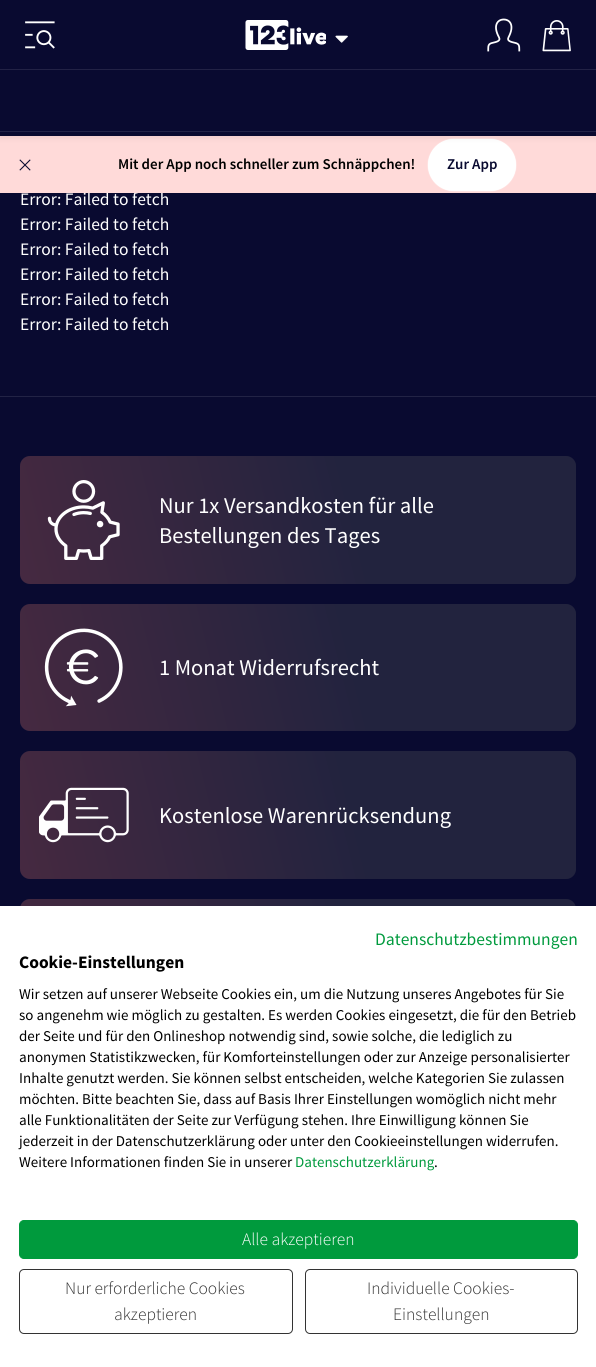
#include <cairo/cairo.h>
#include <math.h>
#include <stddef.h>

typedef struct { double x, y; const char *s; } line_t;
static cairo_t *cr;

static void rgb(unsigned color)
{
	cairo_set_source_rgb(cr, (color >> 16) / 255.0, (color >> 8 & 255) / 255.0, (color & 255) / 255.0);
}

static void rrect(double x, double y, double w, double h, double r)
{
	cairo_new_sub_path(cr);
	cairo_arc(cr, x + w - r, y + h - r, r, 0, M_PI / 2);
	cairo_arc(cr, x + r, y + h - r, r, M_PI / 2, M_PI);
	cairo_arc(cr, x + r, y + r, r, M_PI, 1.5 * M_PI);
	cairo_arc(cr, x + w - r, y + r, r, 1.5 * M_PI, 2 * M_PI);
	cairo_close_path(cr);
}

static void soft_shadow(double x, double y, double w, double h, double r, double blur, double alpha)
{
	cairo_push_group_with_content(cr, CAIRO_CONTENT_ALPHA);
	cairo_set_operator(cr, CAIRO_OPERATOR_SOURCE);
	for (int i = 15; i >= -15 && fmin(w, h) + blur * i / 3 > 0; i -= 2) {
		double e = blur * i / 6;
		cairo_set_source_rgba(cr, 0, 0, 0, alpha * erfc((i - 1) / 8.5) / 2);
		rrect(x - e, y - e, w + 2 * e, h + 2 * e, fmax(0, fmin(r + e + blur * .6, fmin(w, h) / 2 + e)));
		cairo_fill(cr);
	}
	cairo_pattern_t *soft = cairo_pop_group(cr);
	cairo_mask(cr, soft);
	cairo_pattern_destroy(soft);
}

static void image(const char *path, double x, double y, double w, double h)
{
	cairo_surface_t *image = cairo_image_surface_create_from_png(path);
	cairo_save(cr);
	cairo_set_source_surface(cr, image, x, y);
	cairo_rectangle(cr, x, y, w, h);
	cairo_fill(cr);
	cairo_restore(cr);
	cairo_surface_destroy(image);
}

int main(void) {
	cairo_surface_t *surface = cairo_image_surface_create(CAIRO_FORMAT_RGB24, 596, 1367);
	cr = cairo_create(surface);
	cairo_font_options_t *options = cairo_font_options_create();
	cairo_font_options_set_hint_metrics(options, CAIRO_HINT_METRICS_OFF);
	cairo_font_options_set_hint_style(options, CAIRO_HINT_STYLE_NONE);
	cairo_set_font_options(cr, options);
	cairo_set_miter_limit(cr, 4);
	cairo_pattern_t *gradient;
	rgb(0x090a30);
	cairo_paint(cr);
	image("img/1.png", 25, 21, 30, 28);
	image("img/2.png", 245, 20, 81, 30);
	image("img/3.png", 335, 35, 13, 8);
	image("img/4.png", 487, 18, 34, 34);
	image("img/5.png", 542, 20, 29, 32);
	rgb(0x222345);
	cairo_rectangle(cr, 0, 396, 596, 1);
	cairo_fill(cr);
	rgb(0x22233e);
	rrect(20, 456, 556, 128, 10);
	cairo_fill(cr);
	gradient = cairo_pattern_create_linear(575, 451, 21, 589);
	cairo_pattern_add_color_stop_rgba(gradient, 0.4, 0.133, 0.137, 0.243, 0.2);
	cairo_pattern_add_color_stop_rgba(gradient, 0.99, 0.827, 0.255, 0.286, 0.2);
	cairo_set_source(cr, gradient);
	cairo_pattern_destroy(gradient);
	rrect(20, 456, 556, 128, 10);
	cairo_fill(cr);
	image("img/7.png", 47, 480, 73, 80);
	rgb(0x22233e);
	rrect(20, 604, 556, 127, 10);
	cairo_fill(cr);
	gradient = cairo_pattern_create_linear(575, 598, 21, 737);
	cairo_pattern_add_color_stop_rgba(gradient, 0.4, 0.133, 0.137, 0.243, 0.2);
	cairo_pattern_add_color_stop_rgba(gradient, 0.99, 0.827, 0.255, 0.286, 0.2);
	cairo_set_source(cr, gradient);
	cairo_pattern_destroy(gradient);
	rrect(20, 604, 556, 127, 10);
	cairo_fill(cr);
	image("img/8.png", 44, 628, 79, 79);
	rgb(0x22233e);
	rrect(20, 751, 556, 128, 10);
	cairo_fill(cr);
	gradient = cairo_pattern_create_linear(575, 746, 21, 884);
	cairo_pattern_add_color_stop_rgba(gradient, 0.4, 0.133, 0.137, 0.243, 0.2);
	cairo_pattern_add_color_stop_rgba(gradient, 0.99, 0.827, 0.255, 0.286, 0.2);
	cairo_set_source(cr, gradient);
	cairo_pattern_destroy(gradient);
	rrect(20, 751, 556, 128, 10);
	cairo_fill(cr);
	image("img/9.png", 39, 787, 90, 56);
	rgb(0x22233e);
	rrect(20, 899, 556, 127, 10);
	cairo_fill(cr);
	gradient = cairo_pattern_create_linear(575, 893, 21, 1032);
	cairo_pattern_add_color_stop_rgba(gradient, 0.4, 0.133, 0.137, 0.243, 0.2);
	cairo_pattern_add_color_stop_rgba(gradient, 0.99, 0.827, 0.255, 0.286, 0.2);
	cairo_set_source(cr, gradient);
	cairo_pattern_destroy(gradient);
	rrect(20, 899, 556, 127, 10);
	cairo_fill(cr);
	rgb(0xffffff);
	cairo_rectangle(cr, 0, 906, 596, 461);
	cairo_fill(cr);
	rgb(0x009a3d);
	rrect(19.5, 1220.5, 558, 38, 4.5);
	cairo_fill_preserve(cr);
	cairo_set_line_width(cr, 1);
	cairo_stroke(cr);
	rrect(19.5, 1269.5, 273, 64, 4.5);
	rgb(0x333333);
	cairo_stroke(cr);
	rrect(305.5, 1269.5, 272, 64, 4.5);
	cairo_stroke(cr);
	cairo_select_font_face(cr, "Source Sans Pro", CAIRO_FONT_SLANT_NORMAL, CAIRO_FONT_WEIGHT_NORMAL);
	cairo_set_font_size(cr, 17.5);
	rgb(0xffffff);
	cairo_move_to(cr, 20, 205);
	cairo_show_text(cr, "Error: Failed to fetch");
	rgb(0xffdad9);
	cairo_rectangle(cr, 0, 136, 596, 57);
	cairo_fill(cr);
	rgb(0xffffff);
	soft_shadow(428, 139, 88, 52, 26, 0.5, 1);
	rgb(0xffffff);
	rrect(428.5, 139.5, 87, 51, 25.5);
	cairo_fill_preserve(cr);
	cairo_stroke(cr);
	cairo_save(cr);
	cairo_set_fill_rule(cr, CAIRO_FILL_RULE_EVEN_ODD);
	cairo_new_path(cr);
	cairo_move_to(cr, 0, 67);
	cairo_line_to(cr, 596, 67);
	cairo_line_to(cr, 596, 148);
	cairo_line_to(cr, 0, 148);
	cairo_close_path(cr);
	cairo_move_to(cr, 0, 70);
	cairo_line_to(cr, 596, 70);
	cairo_line_to(cr, 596, 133);
	cairo_line_to(cr, 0, 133);
	cairo_close_path(cr);
	cairo_clip(cr);
	rgb(0x000000);
	soft_shadow(0, 76, 596, 63, 0, 2.5, 0.05);
	cairo_restore(cr);
	rgb(0x222245);
	cairo_rectangle(cr, 0, 69, 596, 1);
	cairo_fill(cr);
	rgb(0x222345);
	cairo_rectangle(cr, 0, 131, 596, 1);
	cairo_fill(cr);
	image("img/6.png", 19, 159, 12, 12);
	cairo_select_font_face(cr, "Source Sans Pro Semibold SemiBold", CAIRO_FONT_SLANT_NORMAL, CAIRO_FONT_WEIGHT_NORMAL);
	cairo_set_font_size(cr, 15);
	rgb(0x090a30);
	cairo_move_to(cr, 447, 169);
	cairo_show_text(cr, "Zur App");
	rgb(0x000000);
	cairo_move_to(cr, 118, 169);
	cairo_show_text(cr, "Mit der App noch schneller zum Schnäppchen!");
	cairo_select_font_face(cr, "Source Sans Pro", CAIRO_FONT_SLANT_NORMAL, CAIRO_FONT_WEIGHT_NORMAL);
	cairo_set_font_size(cr, 17.5);
	rgb(0xffffff);
	{
		static const line_t items[] = {
			{20, 230, "Error: Failed to fetch"},
			{20, 255, "Error: Failed to fetch"},
			{20, 280, "Error: Failed to fetch"},
			{20, 305, "Error: Failed to fetch"},
			{20, 330, "Error: Failed to fetch"},
		};
		for (size_t i = 0; i < sizeof items / sizeof *items; i++) {
			cairo_move_to(cr, items[i].x, items[i].y);
			cairo_show_text(cr, items[i].s);
		}
	}
	cairo_set_font_size(cr, 22.5);
	{
		static const line_t items[] = {
			{159, 513, "Nur 1x Versandkosten für alle"},
			{159, 543, "Bestellungen des Tages"},
			{159, 675, "1 Monat Widerrufsrecht"},
			{159, 823, "Kostenlose Warenrücksendung"},
		};
		for (size_t i = 0; i < sizeof items / sizeof *items; i++) {
			cairo_move_to(cr, items[i].x, items[i].y);
			cairo_show_text(cr, items[i].s);
		}
	}
	cairo_set_font_size(cr, 17.5);
	rgb(0x009a3d);
	cairo_move_to(cr, 375, 945);
	cairo_show_text(cr, "Datenschutzbestimmungen");
	cairo_select_font_face(cr, "Source Sans Pro", CAIRO_FONT_SLANT_NORMAL, CAIRO_FONT_WEIGHT_BOLD);
	rgb(0x000000);
	cairo_move_to(cr, 19, 968);
	cairo_show_text(cr, "Cookie-Einstellungen");
	cairo_select_font_face(cr, "Source Sans Pro", CAIRO_FONT_SLANT_NORMAL, CAIRO_FONT_WEIGHT_NORMAL);
	cairo_set_font_size(cr, 15);
	{
		static const line_t items[] = {
			{19, 999, "Wir setzen auf unserer Webseite Cookies ein, um die Nutzung unseres Angebotes für Sie"},
			{19, 1020, "so angenehm wie möglich zu gestalten. Es werden Cookies eingesetzt, die für den Betrieb"},
			{19, 1041, "der Seite und für den Onlineshop notwendig sind, sowie solche, die lediglich zu"},
			{19, 1062, "anonymen Statistikzwecken, für Komforteinstellungen oder zur Anzeige personalisierter"},
			{19, 1083, "Inhalte genutzt werden. Sie können selbst entscheiden, welche Kategorien Sie zulassen"},
			{19, 1104, "möchten. Bitte beachten Sie, dass auf Basis Ihrer Einstellungen womöglich nicht mehr"},
			{19, 1125, "alle Funktionalitäten der Seite zur Verfügung stehen. Ihre Einwilligung können Sie"},
			{19, 1146, "jederzeit in der Datenschutzerklärung oder unter den Cookieeinstellungen widerrufen."},
			{19, 1167, "Weitere Informationen finden Sie in unserer"},
		};
		for (size_t i = 0; i < sizeof items / sizeof *items; i++) {
			cairo_move_to(cr, items[i].x, items[i].y);
			cairo_show_text(cr, items[i].s);
		}
	}
	rgb(0x009a3d);
	cairo_move_to(cr, 295, 1167);
	cairo_show_text(cr, "Datenschutzerklärung");
	rgb(0x000000);
	cairo_move_to(cr, 434, 1167);
	cairo_show_text(cr, ".");
	cairo_select_font_face(cr, "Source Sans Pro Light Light", CAIRO_FONT_SLANT_NORMAL, CAIRO_FONT_WEIGHT_NORMAL);
	cairo_set_font_size(cr, 17.5);
	rgb(0xffffff);
	cairo_move_to(cr, 242, 1245);
	cairo_show_text(cr, "Alle akzeptieren");
	rgb(0x333333);
	{
		static const line_t items[] = {
			{65, 1294, "Nur erforderliche Cookies"},
			{114, 1320, "akzeptieren"},
			{367, 1294, "Individuelle Cookies-"},
			{393, 1320, "Einstellungen"},
		};
		for (size_t i = 0; i < sizeof items / sizeof *items; i++) {
			cairo_move_to(cr, items[i].x, items[i].y);
			cairo_show_text(cr, items[i].s);
		}
	}
	cairo_surface_write_to_png(surface, "page.png");
	cairo_font_options_destroy(options);
	cairo_destroy(cr);
	cairo_surface_destroy(surface);
	return 0;
}
